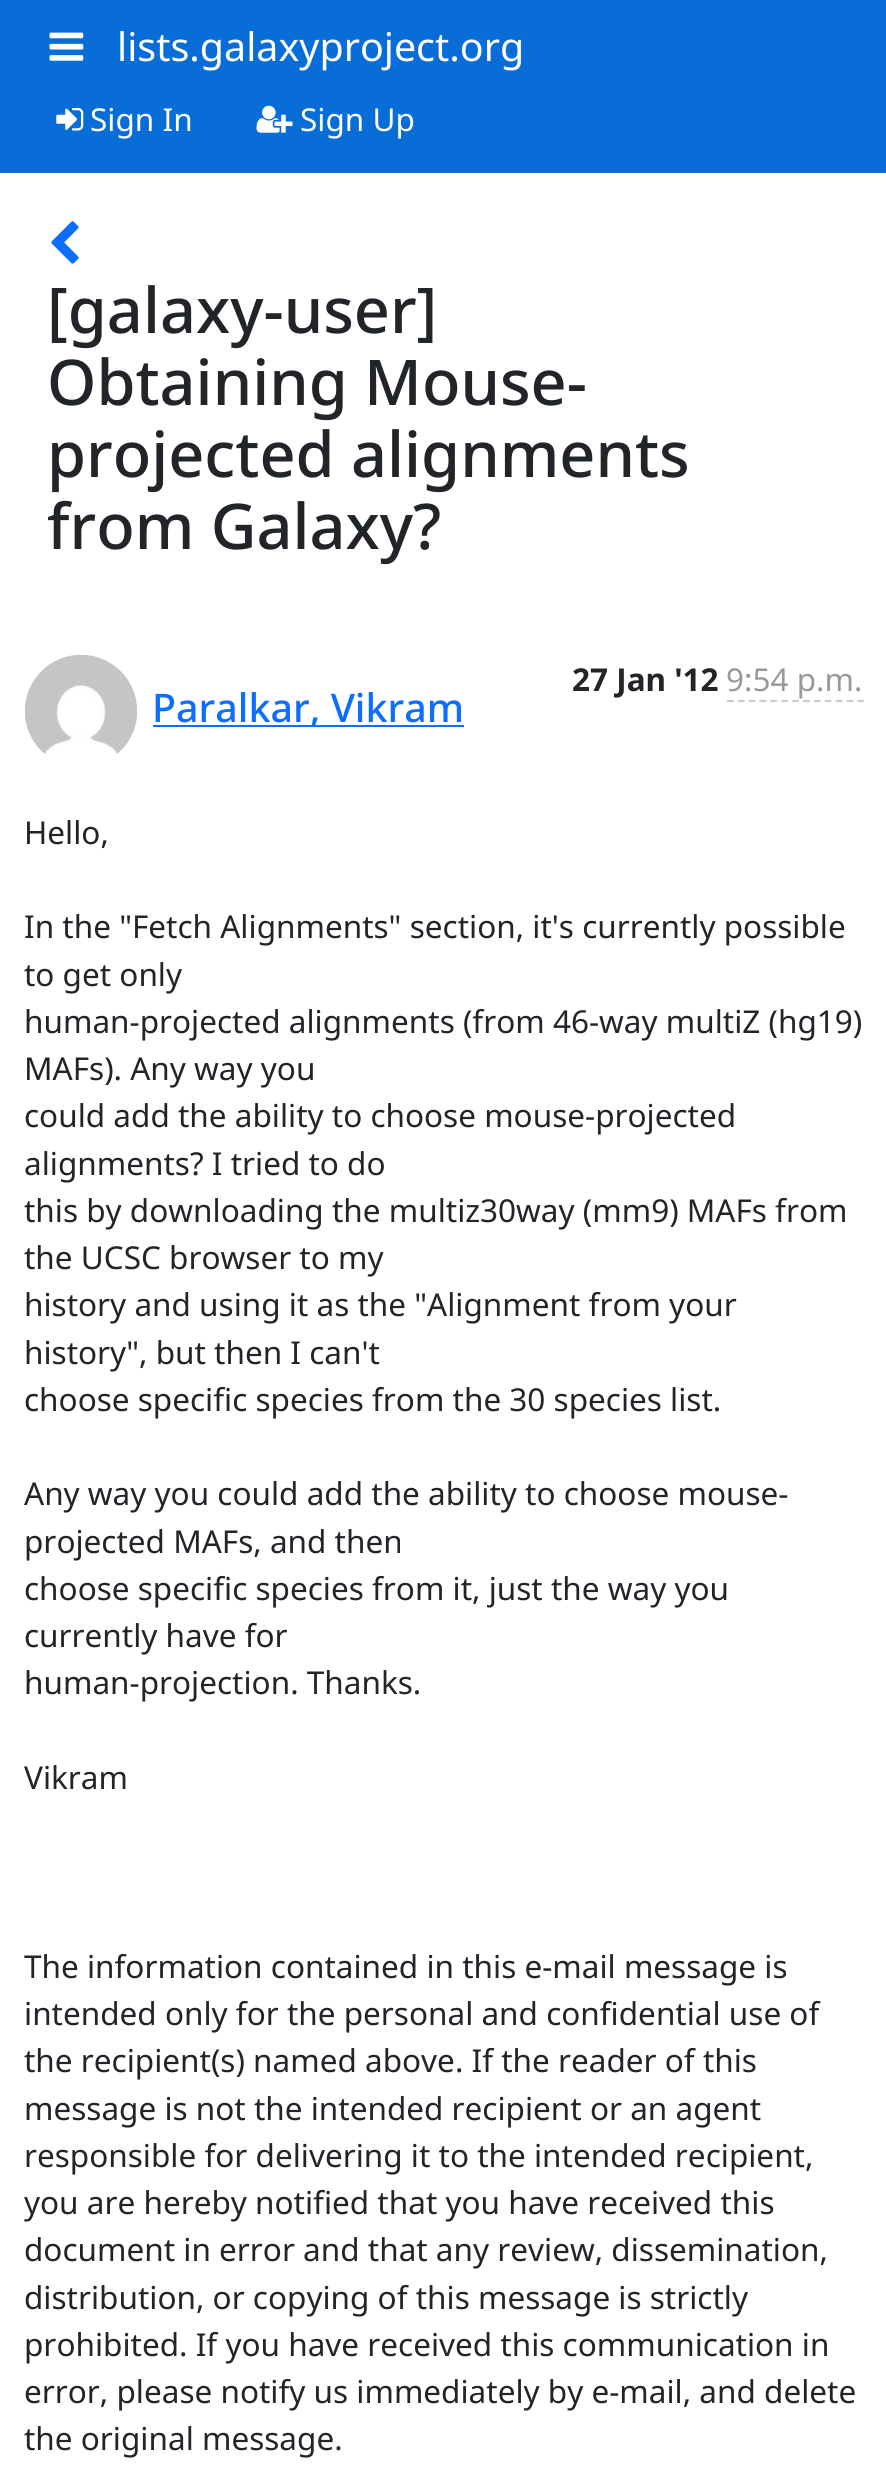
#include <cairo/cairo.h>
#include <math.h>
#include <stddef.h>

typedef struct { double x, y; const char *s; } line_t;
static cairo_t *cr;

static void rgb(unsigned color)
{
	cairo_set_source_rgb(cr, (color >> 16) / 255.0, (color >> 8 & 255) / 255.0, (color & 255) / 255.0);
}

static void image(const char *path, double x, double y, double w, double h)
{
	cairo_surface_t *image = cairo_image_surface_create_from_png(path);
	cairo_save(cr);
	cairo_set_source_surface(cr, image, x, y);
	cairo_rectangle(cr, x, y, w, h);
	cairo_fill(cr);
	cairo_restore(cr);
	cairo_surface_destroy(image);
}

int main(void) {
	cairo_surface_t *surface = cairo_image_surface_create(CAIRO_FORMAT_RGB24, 886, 2483);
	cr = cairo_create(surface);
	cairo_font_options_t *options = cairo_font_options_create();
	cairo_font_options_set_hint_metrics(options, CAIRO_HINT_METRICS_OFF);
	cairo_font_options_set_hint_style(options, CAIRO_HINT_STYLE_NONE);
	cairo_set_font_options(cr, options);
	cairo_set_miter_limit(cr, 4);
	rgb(0xffffff);
	cairo_paint(cr);
	rgb(0x086dd7);
	cairo_rectangle(cr, 0, 0, 886, 173);
	cairo_fill(cr);
	image("img/1.png", 49, 32, 35, 29);
	image("img/2.png", 56, 108, 28, 23);
	image("img/3.png", 256, 105, 37, 28);
	image("img/4.png", 51, 221, 28, 43);
	cairo_new_path(cr);
	cairo_move_to(cr, 727, 701);
	cairo_line_to(cr, 864, 701);
	rgb(0xcccccc);
	cairo_set_line_width(cr, 2.2);
	cairo_set_dash(cr, (double[]){6.75, 4.12}, 2, 0);
	cairo_stroke(cr);
	image("img/5.png", 25, 655, 112, 99);
	rgb(0x0d6efd);
	cairo_rectangle(cr, 153, 725, 311, 2);
	cairo_fill(cr);
	cairo_select_font_face(cr, "Noto Sans", CAIRO_FONT_SLANT_NORMAL, CAIRO_FONT_WEIGHT_NORMAL);
	cairo_set_font_size(cr, 39.4);
	rgb(0xffffff);
	cairo_move_to(cr, 117, 61);
	cairo_show_text(cr, "lists.galaxyproject.org");
	cairo_set_font_size(cr, 31.5);
	cairo_move_to(cr, 90, 131);
	cairo_show_text(cr, "Sign In");
	cairo_move_to(cr, 300, 131);
	cairo_show_text(cr, "Sign Up");
	cairo_select_font_face(cr, "Noto Sans Medium", CAIRO_FONT_SLANT_NORMAL, CAIRO_FONT_WEIGHT_NORMAL);
	cairo_set_font_size(cr, 63);
	rgb(0x212529);
	{
		static const line_t items[] = {
			{47, 333, "[galaxy-user]"},
			{47, 405, "Obtaining Mouse-"},
			{47, 477, "projected alignments"},
			{47, 549, "from Galaxy?"},
		};
		for (size_t i = 0; i < sizeof items / sizeof *items; i++) {
			cairo_move_to(cr, items[i].x, items[i].y);
			cairo_show_text(cr, items[i].s);
		}
	}
	cairo_select_font_face(cr, "Noto Sans", CAIRO_FONT_SLANT_NORMAL, CAIRO_FONT_WEIGHT_BOLD);
	cairo_set_font_size(cr, 31.5);
	cairo_move_to(cr, 572, 691);
	cairo_show_text(cr, "27 Jan '12");
	cairo_select_font_face(cr, "Noto Sans", CAIRO_FONT_SLANT_NORMAL, CAIRO_FONT_WEIGHT_NORMAL);
	rgb(0x999999);
	cairo_move_to(cr, 726, 691);
	cairo_show_text(cr, "9:54 p.m.");
	cairo_select_font_face(cr, "Noto Sans Medium", CAIRO_FONT_SLANT_NORMAL, CAIRO_FONT_WEIGHT_NORMAL);
	cairo_set_font_size(cr, 39.4);
	rgb(0x0d6efd);
	cairo_move_to(cr, 152, 722);
	cairo_show_text(cr, "Paralkar, Vikram");
	cairo_select_font_face(cr, "Noto Sans", CAIRO_FONT_SLANT_NORMAL, CAIRO_FONT_WEIGHT_NORMAL);
	cairo_set_font_size(cr, 31.5);
	rgb(0x212529);
	{
		static const line_t items[] = {
			{24, 844, "Hello,"},
			{24, 938, "In the \"Fetch Alignments\" section, it's currently possible"},
			{24, 986, "to get only"},
			{24, 1033, "human-projected alignments (from 46-way multiZ (hg19)"},
			{24, 1080, "MAFs). Any way you"},
			{24, 1127, "could add the ability to choose mouse-projected"},
			{24, 1175, "alignments? I tried to do"},
			{24, 1222, "this by downloading the multiz30way (mm9) MAFs from"},
			{24, 1269, "the UCSC browser to my"},
			{24, 1316, "history and using it as the \"Alignment from your"},
			{24, 1364, "history\", but then I can't"},
			{24, 1411, "choose specific species from the 30 species list."},
			{24, 1505, "Any way you could add the ability to choose mouse-"},
			{24, 1553, "projected MAFs, and then"},
			{24, 1600, "choose specific species from it, just the way you"},
			{24, 1647, "currently have for"},
			{24, 1694, "human-projection. Thanks."},
			{24, 1789, "Vikram"},
			{24, 1978, "The information contained in this e-mail message is"},
			{24, 2025, "intended only for the personal and confidential use of"},
			{24, 2072, "the recipient(s) named above. If the reader of this"},
			{24, 2120, "message is not the intended recipient or an agent"},
			{24, 2167, "responsible for delivering it to the intended recipient,"},
			{24, 2214, "you are hereby notified that you have received this"},
			{24, 2261, "document in error and that any review, dissemination,"},
			{24, 2309, "distribution, or copying of this message is strictly"},
			{24, 2356, "prohibited. If you have received this communication in"},
			{24, 2403, "error, please notify us immediately by e-mail, and delete"},
			{24, 2450, "the original message."},
		};
		for (size_t i = 0; i < sizeof items / sizeof *items; i++) {
			cairo_move_to(cr, items[i].x, items[i].y);
			cairo_show_text(cr, items[i].s);
		}
	}
	cairo_surface_write_to_png(surface, "page.png");
	cairo_font_options_destroy(options);
	cairo_destroy(cr);
	cairo_surface_destroy(surface);
	return 0;
}
